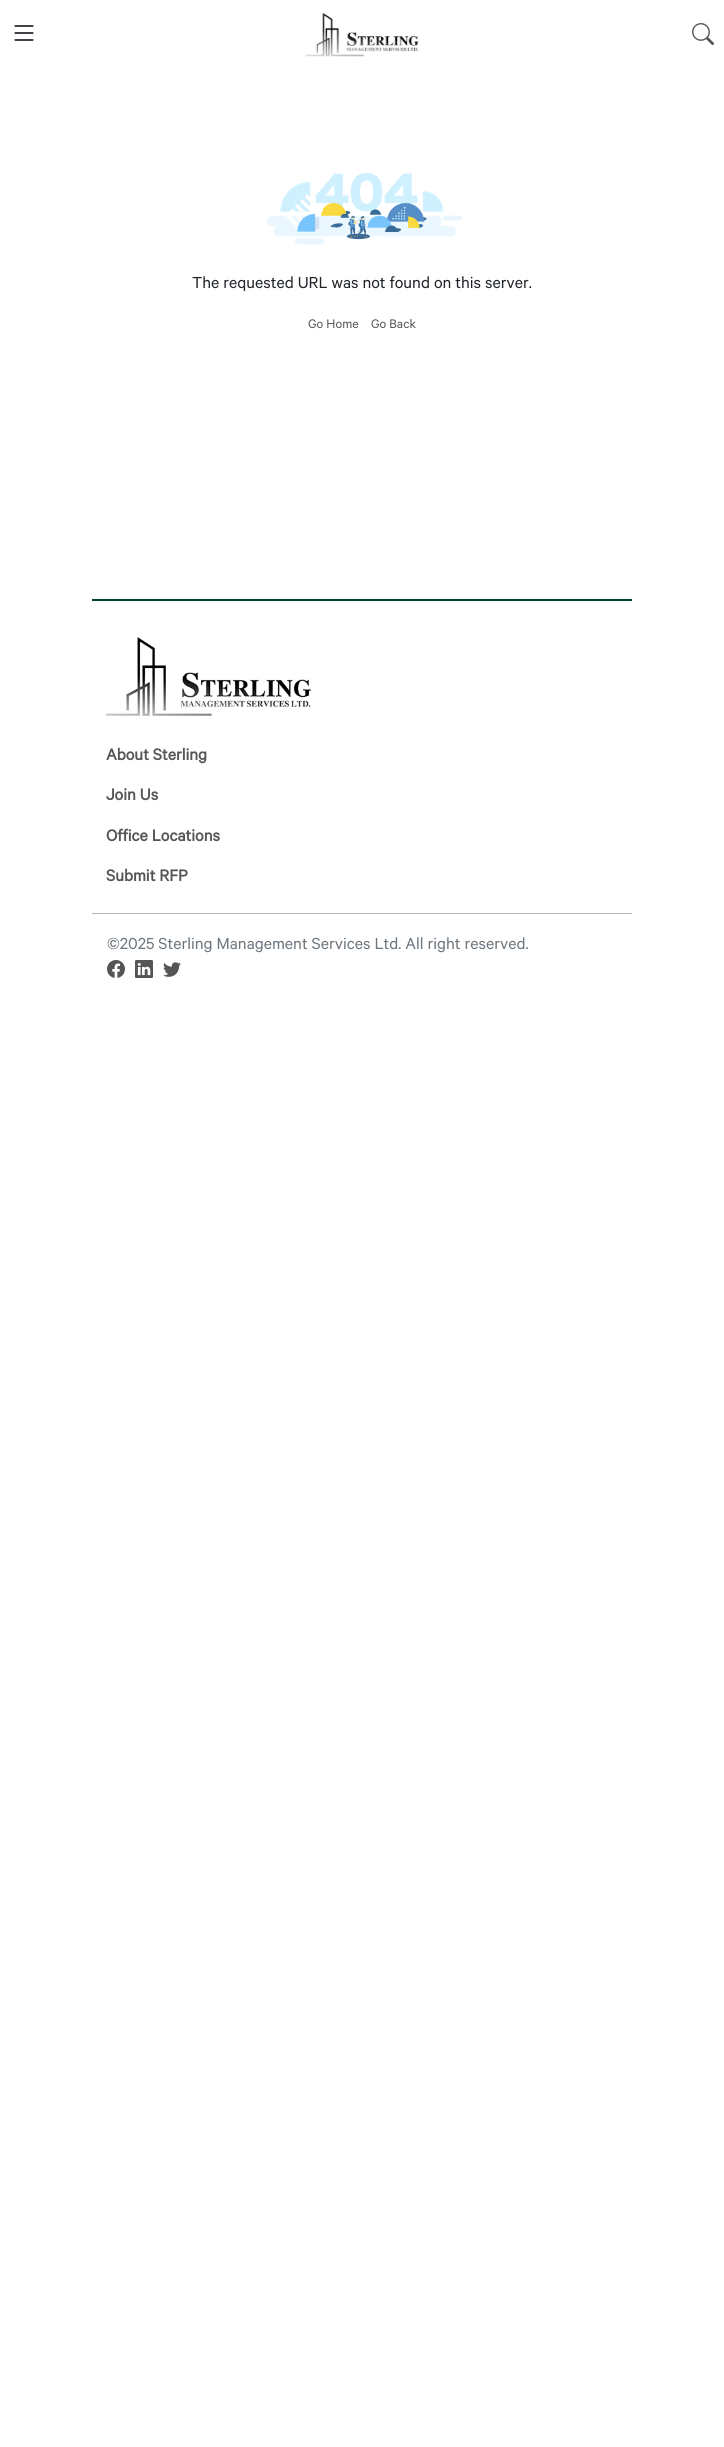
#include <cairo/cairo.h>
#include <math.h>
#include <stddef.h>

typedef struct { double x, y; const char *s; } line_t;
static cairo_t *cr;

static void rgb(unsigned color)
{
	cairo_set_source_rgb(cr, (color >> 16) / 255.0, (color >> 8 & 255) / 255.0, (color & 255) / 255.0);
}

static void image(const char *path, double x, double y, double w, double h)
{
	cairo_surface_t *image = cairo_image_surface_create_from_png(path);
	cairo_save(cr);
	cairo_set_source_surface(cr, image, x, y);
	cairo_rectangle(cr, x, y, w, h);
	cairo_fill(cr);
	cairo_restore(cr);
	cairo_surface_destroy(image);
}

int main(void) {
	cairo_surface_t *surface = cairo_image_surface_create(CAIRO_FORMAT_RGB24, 724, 2447);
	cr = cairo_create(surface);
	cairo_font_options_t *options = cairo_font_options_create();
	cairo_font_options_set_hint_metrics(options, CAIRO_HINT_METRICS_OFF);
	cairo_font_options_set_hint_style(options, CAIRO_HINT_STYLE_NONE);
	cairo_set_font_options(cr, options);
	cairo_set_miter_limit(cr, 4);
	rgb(0xffffff);
	cairo_paint(cr);
	image("img/1.png", 14, 25, 20, 16);
	image("img/2.png", 305, 12, 114, 45);
	image("img/3.png", 692, 23, 22, 22);
	image("img/4.png", 267, 173, 195, 72);
	rgb(0x00412d);
	cairo_rectangle(cr, 92, 599, 540, 2);
	cairo_fill(cr);
	rgb(0xb3b3b3);
	cairo_rectangle(cr, 92, 913, 540, 1);
	cairo_fill(cr);
	image("img/5.png", 106, 637, 205, 79);
	image("img/6.png", 107, 960, 18, 18);
	image("img/7.png", 135, 960, 18, 18);
	image("img/8.png", 163, 962, 18, 15);
	cairo_select_font_face(cr, "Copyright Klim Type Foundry", CAIRO_FONT_SLANT_NORMAL, CAIRO_FONT_WEIGHT_NORMAL);
	cairo_set_font_size(cr, 18);
	rgb(0x212529);
	cairo_move_to(cr, 192, 288);
	cairo_show_text(cr, "The requested URL was not found on this server.");
	cairo_set_font_size(cr, 14);
	rgb(0x555555);
	cairo_move_to(cr, 308, 328);
	cairo_show_text(cr, "Go Home");
	cairo_move_to(cr, 371, 328);
	cairo_show_text(cr, "Go Back");
	cairo_select_font_face(cr, "Copyright Klim Type Foundry", CAIRO_FONT_SLANT_NORMAL, CAIRO_FONT_WEIGHT_BOLD);
	cairo_set_font_size(cr, 18);
	{
		static const line_t items[] = {
			{106, 760, "About Sterling"},
			{106, 800, "Join Us"},
			{106, 841, "Office Locations"},
			{106, 881, "Submit RFP"},
		};
		for (size_t i = 0; i < sizeof items / sizeof *items; i++) {
			cairo_move_to(cr, items[i].x, items[i].y);
			cairo_show_text(cr, items[i].s);
		}
	}
	cairo_select_font_face(cr, "Copyright Klim Type Foundry", CAIRO_FONT_SLANT_NORMAL, CAIRO_FONT_WEIGHT_NORMAL);
	rgb(0x6c757d);
	cairo_move_to(cr, 107, 949);
	cairo_show_text(cr, "©2025 Sterling Management Services Ltd. All right reserved.");
	cairo_surface_write_to_png(surface, "page.png");
	cairo_font_options_destroy(options);
	cairo_destroy(cr);
	cairo_surface_destroy(surface);
	return 0;
}
